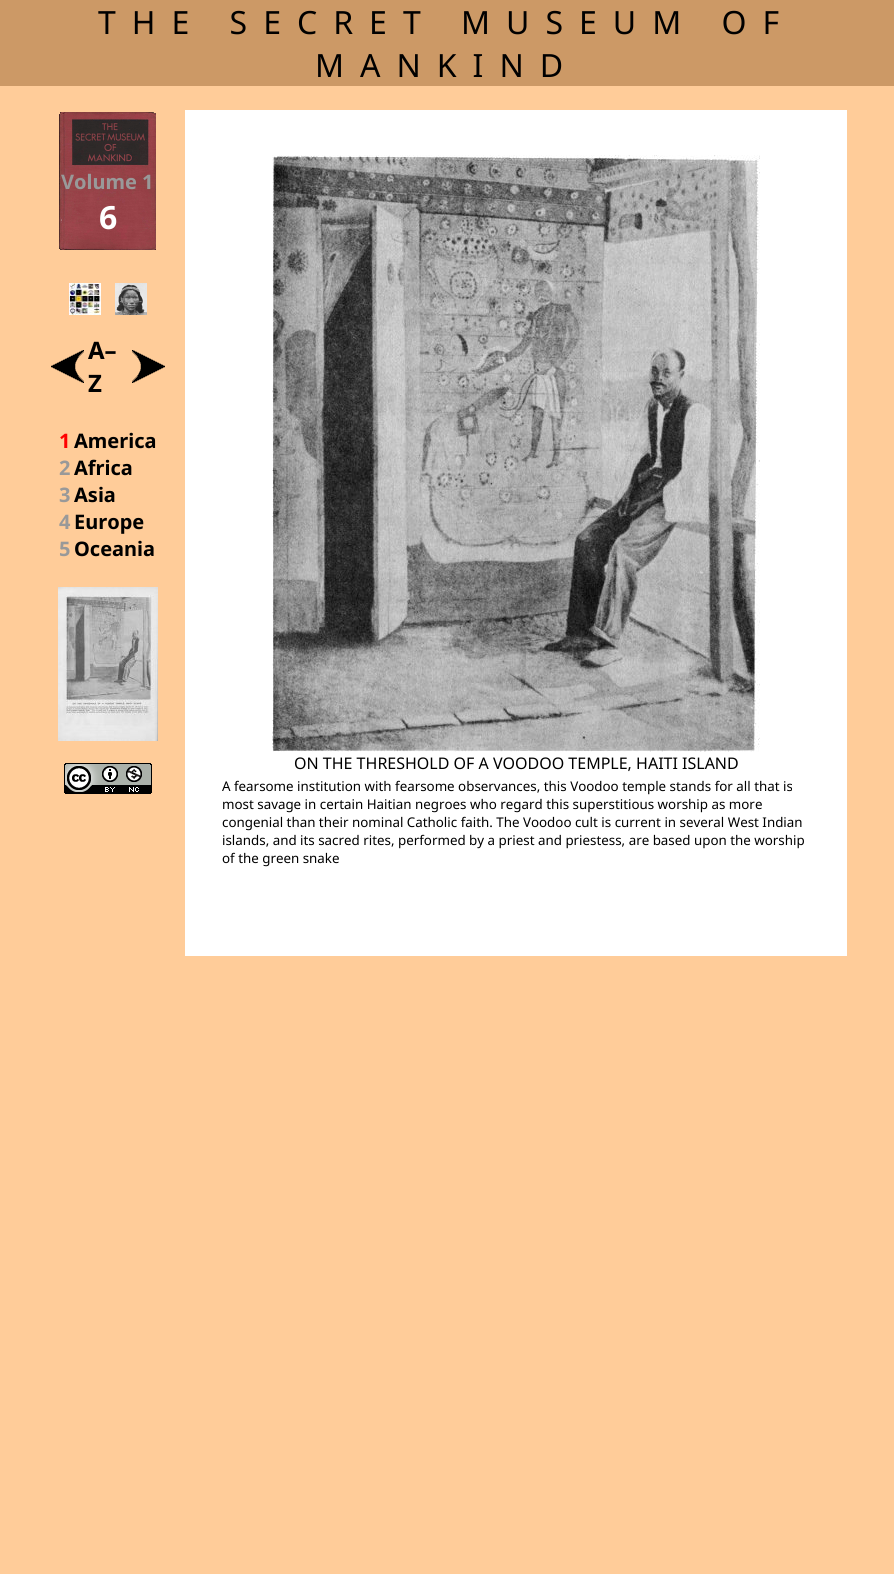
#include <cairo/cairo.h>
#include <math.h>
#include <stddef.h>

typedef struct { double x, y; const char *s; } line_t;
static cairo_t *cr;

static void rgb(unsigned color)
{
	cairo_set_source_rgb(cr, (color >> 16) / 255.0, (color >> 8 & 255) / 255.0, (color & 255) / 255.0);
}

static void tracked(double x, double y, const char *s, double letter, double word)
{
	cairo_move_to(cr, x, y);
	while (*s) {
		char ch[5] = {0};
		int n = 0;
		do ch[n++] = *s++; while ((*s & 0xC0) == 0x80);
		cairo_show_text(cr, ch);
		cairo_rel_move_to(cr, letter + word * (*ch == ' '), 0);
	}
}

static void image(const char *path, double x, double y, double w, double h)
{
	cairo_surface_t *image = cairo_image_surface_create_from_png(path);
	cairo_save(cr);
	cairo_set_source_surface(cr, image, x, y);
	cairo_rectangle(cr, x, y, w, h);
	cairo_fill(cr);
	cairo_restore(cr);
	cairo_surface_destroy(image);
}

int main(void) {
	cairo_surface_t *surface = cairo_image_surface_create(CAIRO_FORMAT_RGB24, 894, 1574);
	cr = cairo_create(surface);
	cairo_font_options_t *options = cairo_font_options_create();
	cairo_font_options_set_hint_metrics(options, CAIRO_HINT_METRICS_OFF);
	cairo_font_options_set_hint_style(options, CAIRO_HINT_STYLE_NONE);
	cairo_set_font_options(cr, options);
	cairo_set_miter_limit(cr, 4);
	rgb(0xffcc99);
	cairo_paint(cr);
	rgb(0xcc9966);
	cairo_rectangle(cr, 0, 0, 894, 86);
	cairo_fill(cr);
	image("img/1.png", 59, 112, 97, 138);
	image("img/2.png", 69, 283, 32, 32);
	image("img/3.png", 115, 283, 32, 32);
	image("img/4.png", 51, 350, 33, 33);
	image("img/5.png", 132, 350, 33, 33);
	image("img/6.png", 58, 587, 100, 154);
	image("img/7.png", 64, 763, 88, 31);
	rgb(0xffffff);
	cairo_rectangle(cr, 185, 110, 662, 846);
	cairo_fill(cr);
	image("img/8.png", 272, 155, 488, 597);
	cairo_select_font_face(cr, "Noto Sans", CAIRO_FONT_SLANT_NORMAL, CAIRO_FONT_WEIGHT_NORMAL);
	cairo_set_font_size(cr, 32);
	rgb(0x000000);
	tracked(98, 34, "THE SECRET MUSEUM OF", 16, 0);
	tracked(315, 77, "MANKIND", 16, 0);
	cairo_select_font_face(cr, "Noto Sans", CAIRO_FONT_SLANT_NORMAL, CAIRO_FONT_WEIGHT_BOLD);
	cairo_set_font_size(cr, 20);
	rgb(0x999999);
	cairo_move_to(cr, 61, 189);
	cairo_show_text(cr, "Volume 1");
	cairo_set_font_size(cr, 32);
	rgb(0xffffff);
	cairo_move_to(cr, 99, 229);
	cairo_show_text(cr, "6");
	cairo_set_font_size(cr, 24);
	rgb(0x000000);
	cairo_move_to(cr, 88, 359);
	cairo_show_text(cr, "A–");
	cairo_move_to(cr, 88, 392);
	cairo_show_text(cr, "Z");
	cairo_set_font_size(cr, 20);
	rgb(0xff0000);
	cairo_move_to(cr, 59, 448);
	cairo_show_text(cr, "1");
	rgb(0x000000);
	cairo_move_to(cr, 74, 448);
	cairo_show_text(cr, "America");
	rgb(0x999999);
	cairo_move_to(cr, 59, 475);
	cairo_show_text(cr, "2");
	rgb(0x000000);
	cairo_move_to(cr, 74, 475);
	cairo_show_text(cr, "Africa");
	rgb(0x999999);
	cairo_move_to(cr, 59, 502);
	cairo_show_text(cr, "3");
	rgb(0x000000);
	cairo_move_to(cr, 74, 502);
	cairo_show_text(cr, "Asia");
	rgb(0x999999);
	cairo_move_to(cr, 59, 529);
	cairo_show_text(cr, "4");
	rgb(0x000000);
	cairo_move_to(cr, 74, 529);
	cairo_show_text(cr, "Europe");
	rgb(0x999999);
	cairo_move_to(cr, 59, 556);
	cairo_show_text(cr, "5");
	rgb(0x000000);
	cairo_move_to(cr, 74, 556);
	cairo_show_text(cr, "Oceania");
	cairo_select_font_face(cr, "Noto Sans", CAIRO_FONT_SLANT_NORMAL, CAIRO_FONT_WEIGHT_NORMAL);
	cairo_set_font_size(cr, 16);
	cairo_move_to(cr, 294, 769);
	cairo_show_text(cr, "ON THE THRESHOLD OF A VOODOO TEMPLE, HAITI ISLAND");
	cairo_set_font_size(cr, 13.35);
	{
		static const line_t items[] = {
			{222, 791, "A fearsome institution with fearsome observances, this Voodoo temple stands for all that is"},
			{222, 809, "most savage in certain Haitian negroes who regard this superstitious worship as more"},
			{222, 827, "congenial than their nominal Catholic faith. The Voodoo cult is current in several West Indian"},
			{222, 845, "islands, and its sacred rites, performed by a priest and priestess, are based upon the worship"},
			{222, 863, "of the green snake"},
		};
		for (size_t i = 0; i < sizeof items / sizeof *items; i++) {
			cairo_move_to(cr, items[i].x, items[i].y);
			cairo_show_text(cr, items[i].s);
		}
	}
	cairo_surface_write_to_png(surface, "page.png");
	cairo_font_options_destroy(options);
	cairo_destroy(cr);
	cairo_surface_destroy(surface);
	return 0;
}
